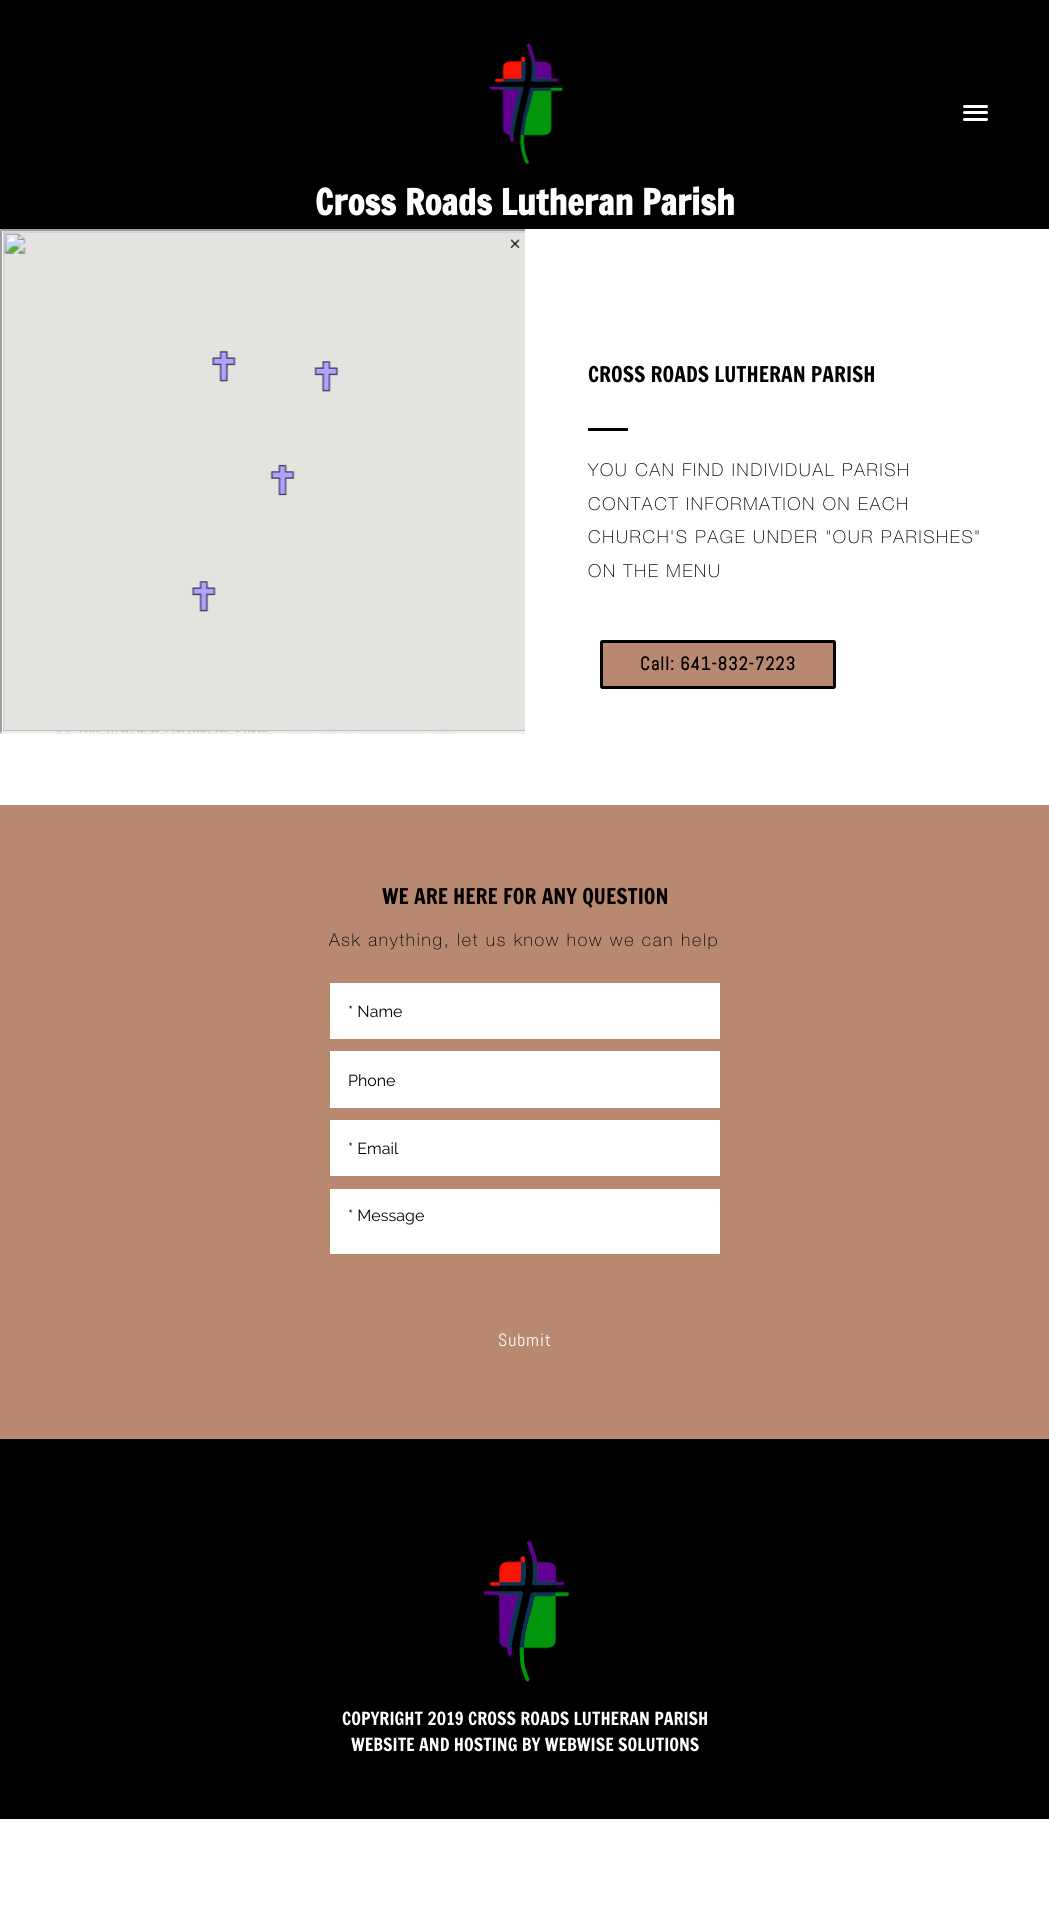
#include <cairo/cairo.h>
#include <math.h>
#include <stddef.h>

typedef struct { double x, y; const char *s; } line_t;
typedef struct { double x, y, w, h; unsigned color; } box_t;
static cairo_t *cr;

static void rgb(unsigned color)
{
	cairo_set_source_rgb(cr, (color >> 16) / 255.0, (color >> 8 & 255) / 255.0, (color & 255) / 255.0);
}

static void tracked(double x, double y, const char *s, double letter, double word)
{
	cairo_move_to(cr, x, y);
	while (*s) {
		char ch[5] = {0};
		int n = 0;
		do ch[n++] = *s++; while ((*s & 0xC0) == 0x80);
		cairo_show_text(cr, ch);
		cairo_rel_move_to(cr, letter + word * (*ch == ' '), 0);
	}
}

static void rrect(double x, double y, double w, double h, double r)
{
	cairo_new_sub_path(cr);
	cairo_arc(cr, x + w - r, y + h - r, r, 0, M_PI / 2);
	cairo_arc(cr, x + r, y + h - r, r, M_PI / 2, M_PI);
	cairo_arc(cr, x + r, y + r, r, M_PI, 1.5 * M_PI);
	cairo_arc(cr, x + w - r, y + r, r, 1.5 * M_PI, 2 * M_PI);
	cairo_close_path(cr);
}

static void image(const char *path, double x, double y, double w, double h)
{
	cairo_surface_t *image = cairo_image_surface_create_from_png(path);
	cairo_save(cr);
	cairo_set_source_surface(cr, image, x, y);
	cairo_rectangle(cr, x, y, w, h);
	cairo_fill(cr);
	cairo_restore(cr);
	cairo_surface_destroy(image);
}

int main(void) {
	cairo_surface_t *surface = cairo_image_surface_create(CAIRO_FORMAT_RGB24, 1049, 1930);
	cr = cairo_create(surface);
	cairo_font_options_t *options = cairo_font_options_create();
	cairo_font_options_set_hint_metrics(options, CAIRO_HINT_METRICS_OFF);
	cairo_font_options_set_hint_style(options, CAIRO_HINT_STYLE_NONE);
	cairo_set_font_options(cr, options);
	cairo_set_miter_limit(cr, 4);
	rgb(0xffffff);
	cairo_paint(cr);
	rgb(0x000000);
	cairo_rectangle(cr, 0, 0, 1049, 229);
	cairo_fill(cr);
	rgb(0xffffff);
	rrect(963, 111, 25, 3, 1.5);
	cairo_fill(cr);
	rrect(963, 105, 25, 3, 1.5);
	cairo_fill(cr);
	rrect(963, 118, 25, 3, 1.5);
	cairo_fill(cr);
	image("img/1.png", 489, 43, 74, 121);
	cairo_save(cr);
	cairo_rectangle(cr, 0, 229, 525, 576);
	cairo_clip(cr);
	rgb(0x9f9f9f);
	cairo_new_path(cr);
	cairo_move_to(cr, 0, 229);
	cairo_line_to(cr, 530, 229);
	cairo_line_to(cr, 528, 231);
	cairo_line_to(cr, 2, 231);
	cairo_close_path(cr);
	cairo_fill(cr);
	rgb(0xeeeeee);
	cairo_new_path(cr);
	cairo_move_to(cr, 530, 734);
	cairo_line_to(cr, 0, 734);
	cairo_line_to(cr, 2, 731);
	cairo_line_to(cr, 528, 731);
	cairo_close_path(cr);
	cairo_fill(cr);
	cairo_restore(cr);
	rgb(0x9f9f9f);
	cairo_new_path(cr);
	cairo_move_to(cr, 0, 734);
	cairo_line_to(cr, 0, 229);
	cairo_line_to(cr, 2, 231);
	cairo_line_to(cr, 2, 731);
	cairo_close_path(cr);
	cairo_fill(cr);
	image("img/2.png", 2, 231, 523, 501);
	rgb(0x000000);
	cairo_rectangle(cr, 588, 428, 40, 3);
	cairo_fill(cr);
	rgb(0xb88870);
	rrect(601.5, 641.5, 233, 46, 1);
	cairo_fill_preserve(cr);
	rgb(0x000000);
	cairo_set_line_width(cr, 3);
	cairo_stroke(cr);
	{
		static const box_t items[] = {
			{0, 805, 1049, 634, 0xb88870},
			{330, 983, 390, 56, 0xffffff},
			{330, 1051, 390, 57, 0xffffff},
			{330, 1120, 390, 56, 0xffffff},
			{330, 1189, 390, 65, 0xffffff},
			{0, 1439, 1049, 380, 0x000000},
		};
		for (size_t i = 0; i < sizeof items / sizeof *items; i++) {
			rgb(items[i].color);
			cairo_rectangle(cr, items[i].x, items[i].y, items[i].w, items[i].h);
			cairo_fill(cr);
		}
	}
	image("img/3.png", 483, 1541, 86, 141);
	cairo_select_font_face(cr, "Francois One", CAIRO_FONT_SLANT_NORMAL, CAIRO_FONT_WEIGHT_BOLD);
	cairo_set_font_size(cr, 35);
	rgb(0xffffff);
	cairo_move_to(cr, 315, 215);
	cairo_show_text(cr, "Cross Roads Lutheran Parish");
	cairo_select_font_face(cr, "Francois One", CAIRO_FONT_SLANT_NORMAL, CAIRO_FONT_WEIGHT_NORMAL);
	cairo_set_font_size(cr, 21.25);
	rgb(0x000000);
	cairo_move_to(cr, 588, 382);
	cairo_show_text(cr, "CROSS ROADS LUTHERAN PARISH");
	cairo_select_font_face(cr, "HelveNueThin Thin", CAIRO_FONT_SLANT_NORMAL, CAIRO_FONT_WEIGHT_NORMAL);
	cairo_set_font_size(cr, 17.75);
	{
		static const line_t items[] = {
			{588, 476, "YOU CAN FIND INDIVIDUAL PARISH"},
			{588, 510, "CONTACT INFORMATION ON EACH"},
			{588, 543, "CHURCH'S PAGE UNDER \"OUR PARISHES\""},
			{588, 577, "ON THE MENU"},
		};
		for (size_t i = 0; i < sizeof items / sizeof *items; i++) {
			tracked(items[i].x, items[i].y, items[i].s, 1.75, 0);
		}
	}
	cairo_select_font_face(cr, "Abel", CAIRO_FONT_SLANT_NORMAL, CAIRO_FONT_WEIGHT_BOLD);
	cairo_set_font_size(cr, 18.6);
	tracked(640, 670, "Call: 641-832-7223", 0.9, 0);
	cairo_select_font_face(cr, "Francois One", CAIRO_FONT_SLANT_NORMAL, CAIRO_FONT_WEIGHT_NORMAL);
	cairo_set_font_size(cr, 21.25);
	cairo_move_to(cr, 382, 904);
	cairo_show_text(cr, "WE ARE HERE FOR ANY QUESTION");
	cairo_select_font_face(cr, "HelveNueThin Thin", CAIRO_FONT_SLANT_NORMAL, CAIRO_FONT_WEIGHT_NORMAL);
	cairo_set_font_size(cr, 17.75);
	tracked(329, 946, "Ask anything, let us know how we can help", 1.75, 0);
	cairo_select_font_face(cr, "Raleway", CAIRO_FONT_SLANT_NORMAL, CAIRO_FONT_WEIGHT_NORMAL);
	cairo_set_font_size(cr, 16);
	{
		static const line_t items[] = {
			{348, 1017, "* Name"},
			{348, 1086, "Phone"},
			{348, 1154, "* Email"},
			{348, 1221, "* Message"},
		};
		for (size_t i = 0; i < sizeof items / sizeof *items; i++) {
			cairo_move_to(cr, items[i].x, items[i].y);
			cairo_show_text(cr, items[i].s);
		}
	}
	cairo_select_font_face(cr, "Abel", CAIRO_FONT_SLANT_NORMAL, CAIRO_FONT_WEIGHT_NORMAL);
	cairo_set_font_size(cr, 17.75);
	rgb(0xffffff);
	tracked(498, 1346, "Submit", 1, 0);
	cairo_select_font_face(cr, "Francois One", CAIRO_FONT_SLANT_NORMAL, CAIRO_FONT_WEIGHT_NORMAL);
	cairo_move_to(cr, 342, 1725);
	cairo_show_text(cr, "COPYRIGHT 2019 CROSS ROADS LUTHERAN PARISH");
	cairo_move_to(cr, 351, 1751);
	cairo_show_text(cr, "WEBSITE AND HOSTING BY WEBWISE SOLUTIONS");
	cairo_surface_write_to_png(surface, "page.png");
	cairo_font_options_destroy(options);
	cairo_destroy(cr);
	cairo_surface_destroy(surface);
	return 0;
}
